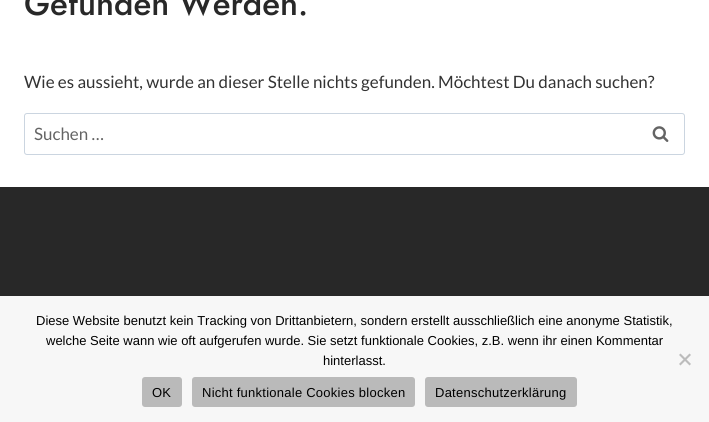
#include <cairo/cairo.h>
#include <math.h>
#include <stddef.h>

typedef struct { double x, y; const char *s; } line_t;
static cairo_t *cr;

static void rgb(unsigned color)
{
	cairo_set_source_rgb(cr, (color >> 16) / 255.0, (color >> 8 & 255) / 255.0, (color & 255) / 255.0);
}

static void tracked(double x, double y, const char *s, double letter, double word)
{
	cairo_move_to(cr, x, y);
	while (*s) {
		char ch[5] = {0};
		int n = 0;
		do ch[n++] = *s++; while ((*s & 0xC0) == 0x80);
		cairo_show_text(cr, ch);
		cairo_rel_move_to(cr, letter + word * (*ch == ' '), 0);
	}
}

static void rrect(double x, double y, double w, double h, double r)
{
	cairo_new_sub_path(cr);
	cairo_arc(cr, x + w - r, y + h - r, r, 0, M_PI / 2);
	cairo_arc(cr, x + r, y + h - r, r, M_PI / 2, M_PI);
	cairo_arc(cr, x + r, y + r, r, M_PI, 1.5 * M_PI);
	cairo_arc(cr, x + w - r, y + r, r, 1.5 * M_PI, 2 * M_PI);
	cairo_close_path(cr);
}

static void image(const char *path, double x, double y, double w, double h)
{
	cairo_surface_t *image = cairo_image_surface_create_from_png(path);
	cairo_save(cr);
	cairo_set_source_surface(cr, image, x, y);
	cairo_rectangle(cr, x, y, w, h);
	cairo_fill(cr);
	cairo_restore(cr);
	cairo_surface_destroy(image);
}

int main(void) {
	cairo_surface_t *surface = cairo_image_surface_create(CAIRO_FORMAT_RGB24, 709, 422);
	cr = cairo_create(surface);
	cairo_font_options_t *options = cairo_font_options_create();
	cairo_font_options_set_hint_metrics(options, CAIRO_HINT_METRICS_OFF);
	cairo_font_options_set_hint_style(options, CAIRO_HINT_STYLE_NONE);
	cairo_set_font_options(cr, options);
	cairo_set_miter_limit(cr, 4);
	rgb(0xffffff);
	cairo_paint(cr);
	rrect(24.5, 113.5, 660, 41, 2.5);
	rgb(0xcbd5e0);
	cairo_set_line_width(cr, 1);
	cairo_stroke(cr);
	image("img/1.png", 652, 126, 17, 16);
	rgb(0x282828);
	cairo_rectangle(cr, 0, 187, 709, 109);
	cairo_fill(cr);
	rgb(0xf7f7f7);
	cairo_rectangle(cr, 0, 296, 709, 126);
	cairo_fill(cr);
	rgb(0xbcbcbc);
	cairo_new_path(cr);
	cairo_move_to(cr, 689.5, 353.5);
	cairo_line_to(cr, 691, 355);
	cairo_line_to(cr, 680.5, 365.5);
	cairo_line_to(cr, 679, 364);
	cairo_close_path(cr);
	cairo_fill(cr);
	cairo_new_path(cr);
	cairo_move_to(cr, 679, 355);
	cairo_line_to(cr, 680.5, 353.5);
	cairo_line_to(cr, 691, 364);
	cairo_line_to(cr, 689.5, 365.5);
	cairo_close_path(cr);
	cairo_fill(cr);
	rgb(0xbababa);
	rrect(142, 377, 40, 30, 3);
	cairo_fill(cr);
	rrect(192, 377, 223, 30, 3);
	cairo_fill(cr);
	rrect(425, 377, 152, 30, 3);
	cairo_fill(cr);
	cairo_select_font_face(cr, "Jost Medium", CAIRO_FONT_SLANT_NORMAL, CAIRO_FONT_WEIGHT_NORMAL);
	cairo_set_font_size(cr, 33);
	rgb(0x282828);
	cairo_move_to(cr, 24, 15);
	cairo_show_text(cr, "Gefunden Werden.");
	cairo_select_font_face(cr, "Lato", CAIRO_FONT_SLANT_NORMAL, CAIRO_FONT_WEIGHT_NORMAL);
	cairo_set_font_size(cr, 17);
	rgb(0x333333);
	cairo_move_to(cr, 24, 88);
	cairo_show_text(cr, "Wie es aussieht, wurde an dieser Stelle nichts gefunden. Möchtest Du danach suchen?");
	rgb(0x646464);
	cairo_move_to(cr, 34, 140);
	cairo_show_text(cr, "Suchen …");
	cairo_select_font_face(cr, "Liberation Sans", CAIRO_FONT_SLANT_NORMAL, CAIRO_FONT_WEIGHT_NORMAL);
	cairo_set_font_size(cr, 13);
	rgb(0x000000);
	{
		static const line_t items[] = {
			{36, 325, "Diese Website benutzt kein Tracking von Drittanbietern, sondern erstellt ausschließlich eine anonyme Statistik,"},
			{46, 345, "welche Seite wann wie oft aufgerufen wurde. Sie setzt funktionale Cookies, z.B. wenn ihr einen Kommentar"},
			{323, 365, "hinterlasst."},
		};
		for (size_t i = 0; i < sizeof items / sizeof *items; i++) {
			cairo_move_to(cr, items[i].x, items[i].y);
			cairo_show_text(cr, items[i].s);
		}
	}
	{
		static const line_t items[] = {
			{152, 397, "OK"},
			{202, 397, "Nicht funktionale Cookies blocken"},
			{435, 397, "Datenschutzerklärung"},
		};
		for (size_t i = 0; i < sizeof items / sizeof *items; i++) {
			tracked(items[i].x, items[i].y, items[i].s, 0.25, 0);
		}
	}
	cairo_surface_write_to_png(surface, "page.png");
	cairo_font_options_destroy(options);
	cairo_destroy(cr);
	cairo_surface_destroy(surface);
	return 0;
}
